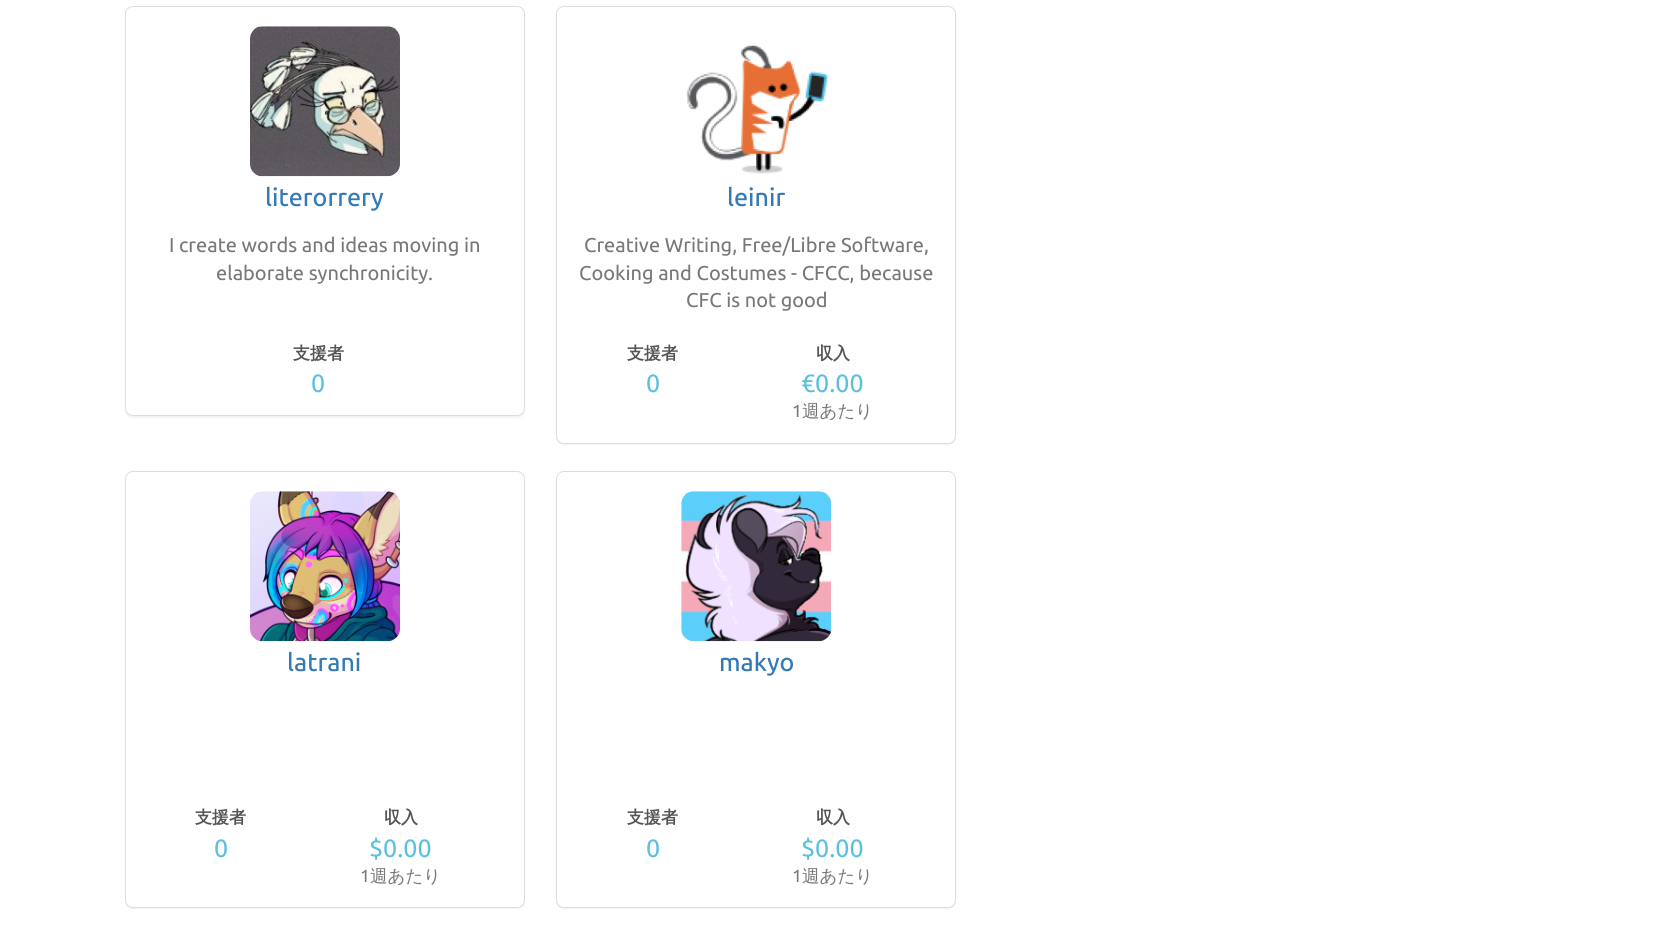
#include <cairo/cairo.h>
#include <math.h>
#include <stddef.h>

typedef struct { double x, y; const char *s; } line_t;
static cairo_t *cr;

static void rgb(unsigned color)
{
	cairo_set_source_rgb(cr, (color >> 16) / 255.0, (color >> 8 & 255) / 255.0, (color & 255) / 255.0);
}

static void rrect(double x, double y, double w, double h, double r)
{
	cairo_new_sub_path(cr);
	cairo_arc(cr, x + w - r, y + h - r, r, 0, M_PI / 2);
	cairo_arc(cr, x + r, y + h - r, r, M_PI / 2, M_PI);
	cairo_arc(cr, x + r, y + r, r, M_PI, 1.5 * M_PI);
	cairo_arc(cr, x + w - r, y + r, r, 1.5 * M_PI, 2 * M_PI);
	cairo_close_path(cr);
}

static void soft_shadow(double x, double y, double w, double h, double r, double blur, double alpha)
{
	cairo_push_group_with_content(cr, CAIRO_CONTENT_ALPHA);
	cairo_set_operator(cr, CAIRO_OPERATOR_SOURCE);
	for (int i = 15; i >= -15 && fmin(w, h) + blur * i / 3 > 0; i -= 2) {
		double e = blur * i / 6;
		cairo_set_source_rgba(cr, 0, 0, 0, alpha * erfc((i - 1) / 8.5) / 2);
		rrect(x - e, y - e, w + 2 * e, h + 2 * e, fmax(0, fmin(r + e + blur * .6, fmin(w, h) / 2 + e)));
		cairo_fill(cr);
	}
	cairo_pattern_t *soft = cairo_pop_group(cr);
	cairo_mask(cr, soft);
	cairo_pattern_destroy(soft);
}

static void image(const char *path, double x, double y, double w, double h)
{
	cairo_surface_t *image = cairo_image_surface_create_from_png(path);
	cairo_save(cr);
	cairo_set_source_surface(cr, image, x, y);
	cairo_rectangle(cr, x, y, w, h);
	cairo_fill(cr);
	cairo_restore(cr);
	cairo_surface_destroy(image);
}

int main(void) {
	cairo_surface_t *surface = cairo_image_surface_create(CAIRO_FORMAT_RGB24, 1673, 926);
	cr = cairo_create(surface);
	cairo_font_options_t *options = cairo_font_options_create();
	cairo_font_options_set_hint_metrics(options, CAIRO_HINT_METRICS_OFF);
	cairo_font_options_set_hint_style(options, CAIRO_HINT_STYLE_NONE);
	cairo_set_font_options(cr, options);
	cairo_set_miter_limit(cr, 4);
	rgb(0xffffff);
	cairo_paint(cr);
	cairo_save(cr);
	cairo_set_fill_rule(cr, CAIRO_FILL_RULE_EVEN_ODD);
	cairo_new_path(cr);
	cairo_move_to(cr, 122, 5);
	cairo_line_to(cr, 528, 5);
	cairo_line_to(cr, 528, 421);
	cairo_line_to(cr, 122, 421);
	cairo_close_path(cr);
	cairo_move_to(cr, 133, 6);
	cairo_line_to(cr, 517, 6);
	cairo_curve_to(cr, 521.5, 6, 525, 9.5, 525, 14);
	cairo_line_to(cr, 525, 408);
	cairo_curve_to(cr, 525, 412.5, 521.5, 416, 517, 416);
	cairo_line_to(cr, 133, 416);
	cairo_curve_to(cr, 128.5, 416, 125, 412.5, 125, 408);
	cairo_line_to(cr, 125, 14);
	cairo_curve_to(cr, 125, 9.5, 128.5, 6, 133, 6);
	cairo_close_path(cr);
	cairo_clip(cr);
	rgb(0x000000);
	soft_shadow(125, 8, 400, 410, 8, 0.5, 0.05);
	cairo_restore(cr);
	rrect(125.5, 6.5, 399, 409, 7.5);
	rgb(0xdddddd);
	cairo_set_line_width(cr, 1);
	cairo_stroke(cr);
	image("img/1.png", 250, 26, 150, 151);
	rgb(0x000000);
	soft_shadow(556, 8, 400, 437, 8, 0.5, 0.05);
	rgb(0xffffff);
	rrect(556.5, 6.5, 399, 437, 7.5);
	cairo_fill_preserve(cr);
	rgb(0xdddddd);
	cairo_stroke(cr);
	image("img/2.png", 686, 45, 143, 129);
	rgb(0x000000);
	soft_shadow(125, 473, 400, 436, 8, 0.5, 0.05);
	rgb(0xffffff);
	rrect(125.5, 471.5, 399, 436, 7.5);
	cairo_fill_preserve(cr);
	rgb(0xdddddd);
	cairo_stroke(cr);
	image("img/3.png", 250, 491, 150, 151);
	rgb(0x000000);
	soft_shadow(556, 473, 400, 436, 8, 0.5, 0.05);
	rgb(0xffffff);
	rrect(556.5, 471.5, 399, 436, 7.5);
	cairo_fill_preserve(cr);
	rgb(0xdddddd);
	cairo_stroke(cr);
	image("img/4.png", 681, 491, 151, 151);
	cairo_select_font_face(cr, "Ubuntu Medium", CAIRO_FONT_SLANT_NORMAL, CAIRO_FONT_WEIGHT_NORMAL);
	cairo_set_font_size(cr, 25);
	rgb(0x337ab7);
	cairo_move_to(cr, 265, 206);
	cairo_show_text(cr, "literorrery");
	cairo_select_font_face(cr, "Ubuntu", CAIRO_FONT_SLANT_NORMAL, CAIRO_FONT_WEIGHT_NORMAL);
	cairo_set_font_size(cr, 20);
	rgb(0x777777);
	cairo_move_to(cr, 169, 252);
	cairo_show_text(cr, "I create words and ideas moving in");
	cairo_move_to(cr, 216, 280);
	cairo_show_text(cr, "elaborate synchronicity.");
	cairo_select_font_face(cr, "WenQuanYi Zen Hei", CAIRO_FONT_SLANT_NORMAL, CAIRO_FONT_WEIGHT_BOLD);
	cairo_set_font_size(cr, 17);
	rgb(0x555555);
	cairo_move_to(cr, 293, 359);
	cairo_show_text(cr, "支援者");
	cairo_select_font_face(cr, "Ubuntu", CAIRO_FONT_SLANT_NORMAL, CAIRO_FONT_WEIGHT_NORMAL);
	cairo_set_font_size(cr, 25);
	rgb(0x5bc0de);
	cairo_move_to(cr, 311, 392);
	cairo_show_text(cr, "0");
	cairo_select_font_face(cr, "Ubuntu Medium", CAIRO_FONT_SLANT_NORMAL, CAIRO_FONT_WEIGHT_NORMAL);
	rgb(0x337ab7);
	cairo_move_to(cr, 727, 206);
	cairo_show_text(cr, "leinir");
	cairo_select_font_face(cr, "Ubuntu", CAIRO_FONT_SLANT_NORMAL, CAIRO_FONT_WEIGHT_NORMAL);
	cairo_set_font_size(cr, 20);
	rgb(0x777777);
	{
		static const line_t items[] = {
			{584, 252, "Creative Writing, Free/Libre Software,"},
			{579, 280, "Cooking and Costumes - CFCC, because"},
			{686, 307, "CFC is not good"},
		};
		for (size_t i = 0; i < sizeof items / sizeof *items; i++) {
			cairo_move_to(cr, items[i].x, items[i].y);
			cairo_show_text(cr, items[i].s);
		}
	}
	cairo_select_font_face(cr, "WenQuanYi Zen Hei", CAIRO_FONT_SLANT_NORMAL, CAIRO_FONT_WEIGHT_BOLD);
	cairo_set_font_size(cr, 17);
	rgb(0x555555);
	cairo_move_to(cr, 627, 359);
	cairo_show_text(cr, "支援者");
	cairo_select_font_face(cr, "Ubuntu", CAIRO_FONT_SLANT_NORMAL, CAIRO_FONT_WEIGHT_NORMAL);
	cairo_set_font_size(cr, 25);
	rgb(0x5bc0de);
	cairo_move_to(cr, 646, 392);
	cairo_show_text(cr, "0");
	cairo_select_font_face(cr, "WenQuanYi Zen Hei", CAIRO_FONT_SLANT_NORMAL, CAIRO_FONT_WEIGHT_BOLD);
	cairo_set_font_size(cr, 17);
	rgb(0x555555);
	cairo_move_to(cr, 816, 359);
	cairo_show_text(cr, "収入");
	cairo_select_font_face(cr, "Ubuntu", CAIRO_FONT_SLANT_NORMAL, CAIRO_FONT_WEIGHT_NORMAL);
	cairo_set_font_size(cr, 25);
	rgb(0x5bc0de);
	cairo_move_to(cr, 801, 392);
	cairo_show_text(cr, "€0.00");
	cairo_set_font_size(cr, 17.5);
	rgb(0x777777);
	cairo_move_to(cr, 792, 417);
	cairo_show_text(cr, "1");
	cairo_select_font_face(cr, "WenQuanYi Zen Hei Medium", CAIRO_FONT_SLANT_NORMAL, CAIRO_FONT_WEIGHT_NORMAL);
	cairo_move_to(cr, 802, 417);
	cairo_show_text(cr, "週あたり");
	cairo_select_font_face(cr, "Ubuntu Medium", CAIRO_FONT_SLANT_NORMAL, CAIRO_FONT_WEIGHT_NORMAL);
	cairo_set_font_size(cr, 25);
	rgb(0x337ab7);
	cairo_move_to(cr, 287, 671);
	cairo_show_text(cr, "latrani");
	cairo_select_font_face(cr, "WenQuanYi Zen Hei", CAIRO_FONT_SLANT_NORMAL, CAIRO_FONT_WEIGHT_BOLD);
	cairo_set_font_size(cr, 17);
	rgb(0x555555);
	cairo_move_to(cr, 195, 823);
	cairo_show_text(cr, "支援者");
	cairo_select_font_face(cr, "Ubuntu", CAIRO_FONT_SLANT_NORMAL, CAIRO_FONT_WEIGHT_NORMAL);
	cairo_set_font_size(cr, 25);
	rgb(0x5bc0de);
	cairo_move_to(cr, 214, 857);
	cairo_show_text(cr, "0");
	cairo_select_font_face(cr, "WenQuanYi Zen Hei", CAIRO_FONT_SLANT_NORMAL, CAIRO_FONT_WEIGHT_BOLD);
	cairo_set_font_size(cr, 17);
	rgb(0x555555);
	cairo_move_to(cr, 384, 823);
	cairo_show_text(cr, "収入");
	cairo_select_font_face(cr, "Ubuntu", CAIRO_FONT_SLANT_NORMAL, CAIRO_FONT_WEIGHT_NORMAL);
	cairo_set_font_size(cr, 25);
	rgb(0x5bc0de);
	cairo_move_to(cr, 369, 857);
	cairo_show_text(cr, "$0.00");
	cairo_set_font_size(cr, 17.5);
	rgb(0x777777);
	cairo_move_to(cr, 360, 882);
	cairo_show_text(cr, "1");
	cairo_select_font_face(cr, "WenQuanYi Zen Hei Medium", CAIRO_FONT_SLANT_NORMAL, CAIRO_FONT_WEIGHT_NORMAL);
	cairo_move_to(cr, 370, 882);
	cairo_show_text(cr, "週あたり");
	cairo_select_font_face(cr, "Ubuntu Medium", CAIRO_FONT_SLANT_NORMAL, CAIRO_FONT_WEIGHT_NORMAL);
	cairo_set_font_size(cr, 25);
	rgb(0x337ab7);
	cairo_move_to(cr, 719, 671);
	cairo_show_text(cr, "makyo");
	cairo_select_font_face(cr, "WenQuanYi Zen Hei", CAIRO_FONT_SLANT_NORMAL, CAIRO_FONT_WEIGHT_BOLD);
	cairo_set_font_size(cr, 17);
	rgb(0x555555);
	cairo_move_to(cr, 627, 823);
	cairo_show_text(cr, "支援者");
	cairo_select_font_face(cr, "Ubuntu", CAIRO_FONT_SLANT_NORMAL, CAIRO_FONT_WEIGHT_NORMAL);
	cairo_set_font_size(cr, 25);
	rgb(0x5bc0de);
	cairo_move_to(cr, 646, 857);
	cairo_show_text(cr, "0");
	cairo_select_font_face(cr, "WenQuanYi Zen Hei", CAIRO_FONT_SLANT_NORMAL, CAIRO_FONT_WEIGHT_BOLD);
	cairo_set_font_size(cr, 17);
	rgb(0x555555);
	cairo_move_to(cr, 816, 823);
	cairo_show_text(cr, "収入");
	cairo_select_font_face(cr, "Ubuntu", CAIRO_FONT_SLANT_NORMAL, CAIRO_FONT_WEIGHT_NORMAL);
	cairo_set_font_size(cr, 25);
	rgb(0x5bc0de);
	cairo_move_to(cr, 801, 857);
	cairo_show_text(cr, "$0.00");
	cairo_set_font_size(cr, 17.5);
	rgb(0x777777);
	cairo_move_to(cr, 792, 882);
	cairo_show_text(cr, "1");
	cairo_select_font_face(cr, "WenQuanYi Zen Hei Medium", CAIRO_FONT_SLANT_NORMAL, CAIRO_FONT_WEIGHT_NORMAL);
	cairo_move_to(cr, 802, 882);
	cairo_show_text(cr, "週あたり");
	cairo_surface_write_to_png(surface, "page.png");
	cairo_font_options_destroy(options);
	cairo_destroy(cr);
	cairo_surface_destroy(surface);
	return 0;
}
